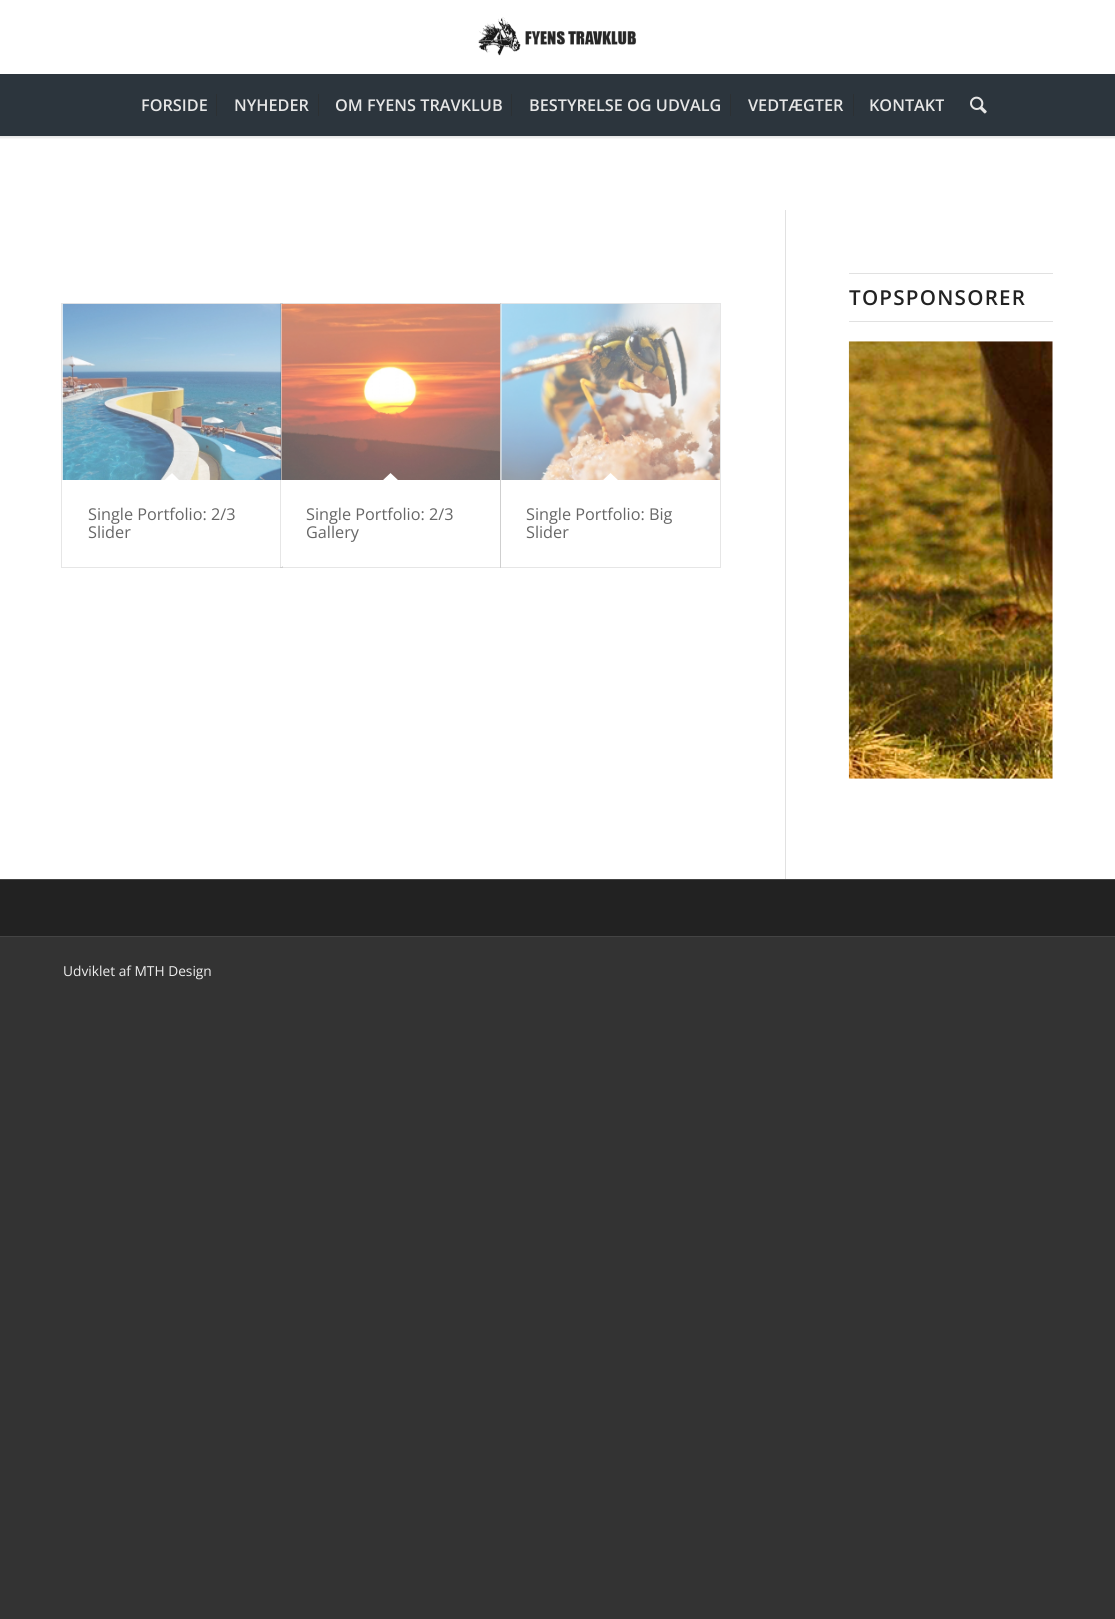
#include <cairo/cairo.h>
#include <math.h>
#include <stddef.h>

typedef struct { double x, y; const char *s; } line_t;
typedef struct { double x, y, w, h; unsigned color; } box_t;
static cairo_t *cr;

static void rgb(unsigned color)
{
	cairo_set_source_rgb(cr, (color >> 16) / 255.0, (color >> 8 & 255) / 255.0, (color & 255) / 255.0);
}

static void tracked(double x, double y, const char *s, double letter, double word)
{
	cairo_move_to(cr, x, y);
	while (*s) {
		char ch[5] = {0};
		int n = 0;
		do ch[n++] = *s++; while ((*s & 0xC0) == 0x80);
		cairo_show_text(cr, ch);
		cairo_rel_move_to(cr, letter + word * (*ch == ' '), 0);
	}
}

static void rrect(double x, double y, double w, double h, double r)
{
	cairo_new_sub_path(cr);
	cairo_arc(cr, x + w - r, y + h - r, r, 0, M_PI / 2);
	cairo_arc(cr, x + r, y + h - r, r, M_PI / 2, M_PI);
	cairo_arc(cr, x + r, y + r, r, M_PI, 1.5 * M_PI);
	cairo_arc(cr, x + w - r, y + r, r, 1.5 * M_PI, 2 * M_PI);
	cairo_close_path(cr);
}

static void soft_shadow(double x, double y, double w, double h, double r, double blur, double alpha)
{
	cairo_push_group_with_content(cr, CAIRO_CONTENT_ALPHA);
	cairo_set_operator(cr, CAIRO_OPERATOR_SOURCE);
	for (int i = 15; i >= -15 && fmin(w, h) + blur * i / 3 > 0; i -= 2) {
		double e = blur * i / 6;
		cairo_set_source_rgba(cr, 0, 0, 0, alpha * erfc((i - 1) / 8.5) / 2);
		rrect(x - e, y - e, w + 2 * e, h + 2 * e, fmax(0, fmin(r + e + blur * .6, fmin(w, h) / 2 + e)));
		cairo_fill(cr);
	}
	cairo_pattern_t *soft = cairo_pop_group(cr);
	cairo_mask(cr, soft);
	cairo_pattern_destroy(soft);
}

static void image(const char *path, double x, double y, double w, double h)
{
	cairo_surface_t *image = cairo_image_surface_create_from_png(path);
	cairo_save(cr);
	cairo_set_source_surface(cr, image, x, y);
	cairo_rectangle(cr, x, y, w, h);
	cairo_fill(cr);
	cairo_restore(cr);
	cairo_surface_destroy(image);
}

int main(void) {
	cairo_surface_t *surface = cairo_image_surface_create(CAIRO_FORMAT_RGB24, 1115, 1619);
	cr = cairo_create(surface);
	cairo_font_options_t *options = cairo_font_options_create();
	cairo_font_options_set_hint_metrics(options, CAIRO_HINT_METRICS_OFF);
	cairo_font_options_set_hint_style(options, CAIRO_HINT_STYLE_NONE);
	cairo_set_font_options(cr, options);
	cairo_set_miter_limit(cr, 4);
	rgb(0x333333);
	cairo_paint(cr);
	rgb(0xffffff);
	cairo_rectangle(cr, 0, 0, 1115, 879);
	cairo_fill(cr);
	cairo_save(cr);
	cairo_rectangle(cr, 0, 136, 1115, 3);
	cairo_clip(cr);
	rgb(0x000000);
	soft_shadow(-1, -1, 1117, 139, 0, 1, 0.1);
	cairo_restore(cr);
	image("img/1.png", 478, 17, 159, 39);
	{
		static const box_t items[] = {
			{0, 74, 1115, 62, 0x2c353d},
			{216, 94, 1, 22, 0x2c3033},
			{318, 94, 1, 22, 0x2c3033},
			{511, 94, 1, 22, 0x2c3033},
			{730, 94, 1, 22, 0x2c3033},
			{853, 94, 1, 22, 0x2c3033},
		};
		for (size_t i = 0; i < sizeof items / sizeof *items; i++) {
			rgb(items[i].color);
			cairo_rectangle(cr, items[i].x, items[i].y, items[i].w, items[i].h);
			cairo_fill(cr);
		}
	}
	image("img/2.png", 970, 96, 17, 18);
	{
		static const box_t items[] = {
			{785, 210, 1, 669, 0xe1e1e1},
			{849, 273, 204, 1, 0xe1e1e1},
			{849, 321, 204, 1, 0xe1e1e1},
		};
		for (size_t i = 0; i < sizeof items / sizeof *items; i++) {
			rgb(items[i].color);
			cairo_rectangle(cr, items[i].x, items[i].y, items[i].w, items[i].h);
			cairo_fill(cr);
		}
	}
	image("img/3.png", 848, 341, 205, 438);
	cairo_rectangle(cr, 61.5, 303.5, 221, 264);
	rgb(0xe6e6e6);
	cairo_set_line_width(cr, 1);
	cairo_stroke(cr);
	image("img/4.png", 62, 303, 219, 177);
	rgb(0xffffff);
	cairo_new_path(cr);
	cairo_move_to(cr, 172, 473);
	cairo_line_to(cr, 180.5, 481.5);
	cairo_line_to(cr, 172, 490.5);
	cairo_line_to(cr, 163, 481.5);
	cairo_close_path(cr);
	cairo_fill(cr);
	cairo_rectangle(cr, 280.5, 303.5, 220, 264);
	cairo_set_source_rgba(cr, 0, 0, 0, 0.1);
	cairo_stroke(cr);
	rgb(0xffffff);
	cairo_rectangle(cr, 282, 304, 1, 262);
	cairo_fill(cr);
	image("img/5.png", 281, 303, 219, 177);
	cairo_new_path(cr);
	cairo_move_to(cr, 390.5, 473);
	cairo_line_to(cr, 399.5, 481.5);
	cairo_line_to(cr, 390.5, 490.5);
	cairo_line_to(cr, 381.5, 481.5);
	cairo_close_path(cr);
	cairo_fill(cr);
	cairo_rectangle(cr, 500.5, 303.5, 220, 264);
	cairo_set_source_rgba(cr, 0, 0, 0, 0.1);
	cairo_stroke(cr);
	image("img/6.png", 501, 303, 219, 177);
	rgb(0xffffff);
	cairo_new_path(cr);
	cairo_move_to(cr, 610.5, 473);
	cairo_line_to(cr, 619.5, 481.5);
	cairo_line_to(cr, 610.5, 490.5);
	cairo_line_to(cr, 601.5, 481.5);
	cairo_close_path(cr);
	cairo_fill(cr);
	{
		static const box_t items[] = {
			{0, 880, 1115, 56, 0x222222},
			{0, 879, 1115, 1, 0x444444},
			{0, 936, 1115, 1, 0x444444},
		};
		for (size_t i = 0; i < sizeof items / sizeof *items; i++) {
			rgb(items[i].color);
			cairo_rectangle(cr, items[i].x, items[i].y, items[i].w, items[i].h);
			cairo_fill(cr);
		}
	}
	cairo_select_font_face(cr, "Open Sans SemiBold", CAIRO_FONT_SLANT_NORMAL, CAIRO_FONT_WEIGHT_NORMAL);
	cairo_set_font_size(cr, 16.25);
	rgb(0xe6e6e6);
	{
		static const line_t items[] = {
			{141, 111, "FORSIDE"},
			{234, 111, "NYHEDER"},
			{335, 111, "OM FYENS TRAVKLUB"},
			{529, 111, "BESTYRELSE OG UDVALG"},
			{748, 111, "VEDTÆGTER"},
			{869, 111, "KONTAKT"},
		};
		for (size_t i = 0; i < sizeof items / sizeof *items; i++) {
			cairo_move_to(cr, items[i].x, items[i].y);
			cairo_show_text(cr, items[i].s);
		}
	}
	cairo_set_font_size(cr, 20.6);
	rgb(0x222222);
	tracked(849, 305, "TOPSPONSORER", 1.25, 0);
	cairo_select_font_face(cr, "Open Sans", CAIRO_FONT_SLANT_NORMAL, CAIRO_FONT_WEIGHT_NORMAL);
	cairo_set_font_size(cr, 16.25);
	rgb(0x666666);
	{
		static const line_t items[] = {
			{88, 520, "Single Portfolio: 2/3"},
			{88, 538, "Slider"},
			{306, 520, "Single Portfolio: 2/3"},
			{306, 538, "Gallery"},
			{526, 520, "Single Portfolio: Big"},
			{526, 538, "Slider"},
		};
		for (size_t i = 0; i < sizeof items / sizeof *items; i++) {
			cairo_move_to(cr, items[i].x, items[i].y);
			cairo_show_text(cr, items[i].s);
		}
	}
	cairo_set_font_size(cr, 13.75);
	rgb(0xeeeeee);
	cairo_move_to(cr, 63, 976);
	cairo_show_text(cr, "Udviklet af MTH Design");
	cairo_surface_write_to_png(surface, "page.png");
	cairo_font_options_destroy(options);
	cairo_destroy(cr);
	cairo_surface_destroy(surface);
	return 0;
}
